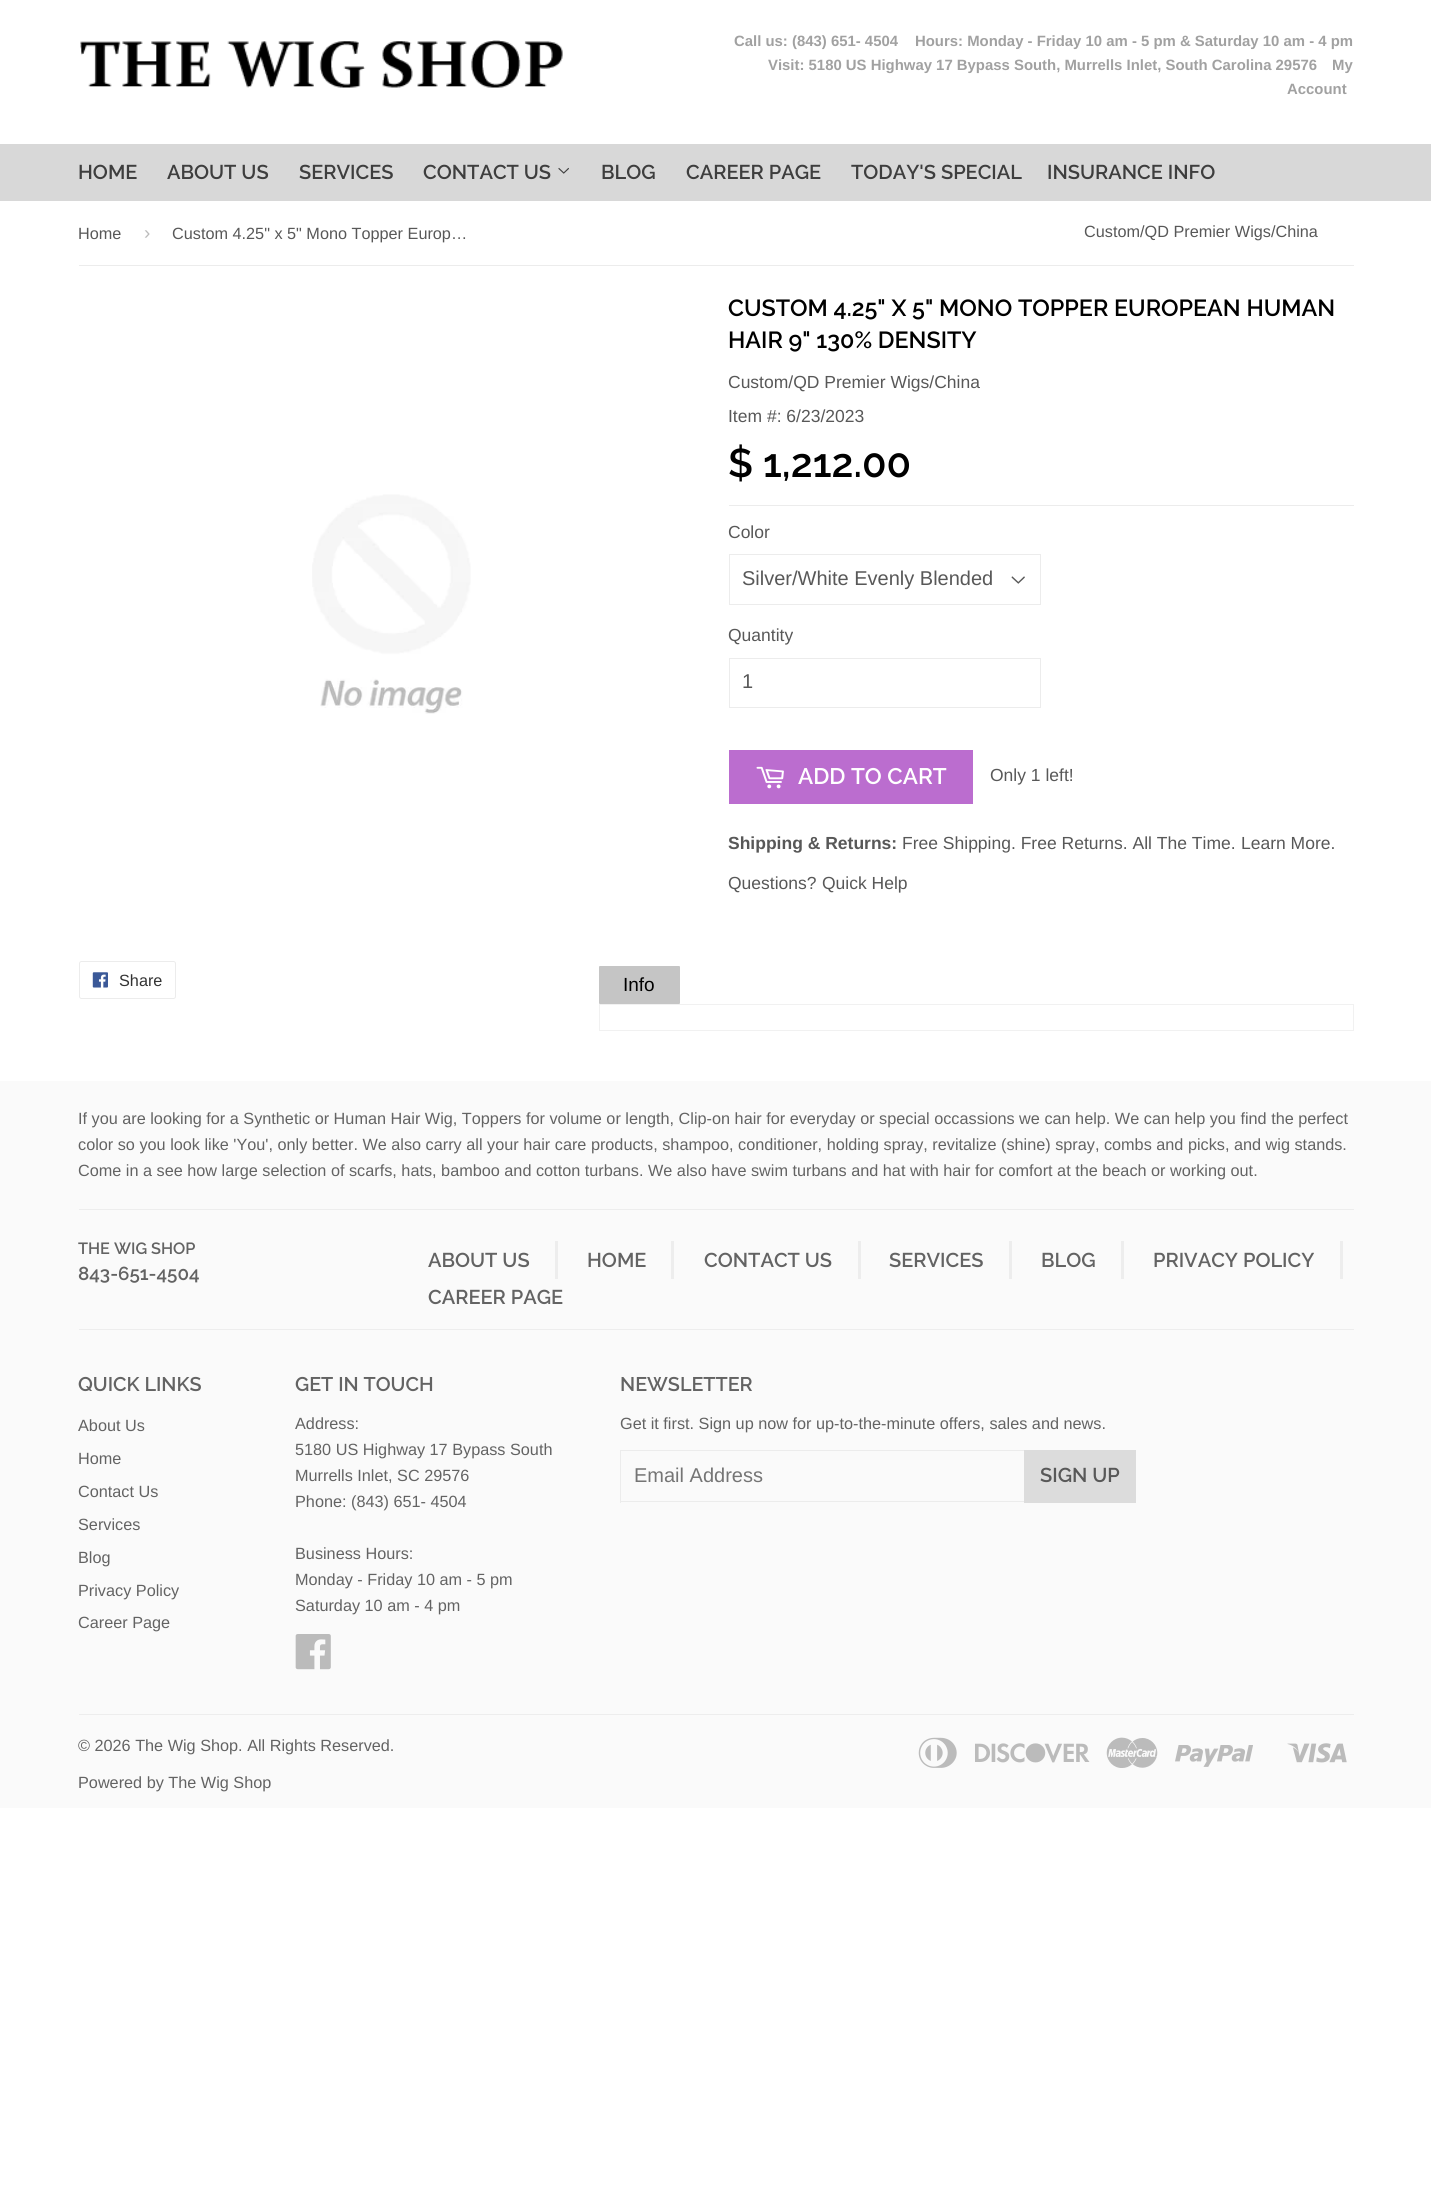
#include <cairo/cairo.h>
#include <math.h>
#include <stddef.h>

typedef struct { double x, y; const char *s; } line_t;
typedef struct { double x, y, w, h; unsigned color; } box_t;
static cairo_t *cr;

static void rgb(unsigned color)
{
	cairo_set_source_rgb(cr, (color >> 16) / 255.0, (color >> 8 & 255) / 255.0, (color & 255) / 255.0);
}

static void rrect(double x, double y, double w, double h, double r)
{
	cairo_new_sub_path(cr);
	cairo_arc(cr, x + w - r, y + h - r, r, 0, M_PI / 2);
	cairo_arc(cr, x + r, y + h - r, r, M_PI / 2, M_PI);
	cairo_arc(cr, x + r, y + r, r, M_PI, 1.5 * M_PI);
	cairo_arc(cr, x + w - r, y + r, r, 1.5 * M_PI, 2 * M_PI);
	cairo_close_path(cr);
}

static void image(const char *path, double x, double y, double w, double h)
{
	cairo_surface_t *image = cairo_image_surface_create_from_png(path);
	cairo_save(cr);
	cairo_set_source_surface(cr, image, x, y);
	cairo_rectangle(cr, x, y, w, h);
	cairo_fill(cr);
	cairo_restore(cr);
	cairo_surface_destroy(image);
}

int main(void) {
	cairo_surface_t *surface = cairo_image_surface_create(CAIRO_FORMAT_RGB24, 1431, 2196);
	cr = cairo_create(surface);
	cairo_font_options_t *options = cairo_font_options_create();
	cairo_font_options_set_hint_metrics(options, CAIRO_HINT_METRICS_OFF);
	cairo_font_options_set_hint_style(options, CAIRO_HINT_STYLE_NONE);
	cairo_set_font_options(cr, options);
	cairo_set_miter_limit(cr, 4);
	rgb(0xffffff);
	cairo_paint(cr);
	image("img/1.png", 80, 40, 483, 48);
	rgb(0xd8d8d8);
	cairo_rectangle(cr, 0, 144, 1431, 57);
	cairo_fill(cr);
	image("img/2.png", 558, 167, 11, 7);
	rgb(0xececec);
	cairo_rectangle(cr, 79, 265, 1275, 1);
	cairo_fill(cr);
	image("img/3.png", 312, 494, 159, 220);
	cairo_rectangle(cr, 729, 505, 625, 1);
	cairo_fill(cr);
	image("img/4.png", 1011, 576, 14, 8);
	cairo_rectangle(cr, 729.5, 554.5, 311, 50);
	cairo_set_line_width(cr, 1);
	cairo_stroke(cr);
	cairo_rectangle(cr, 729.5, 658.5, 311, 49);
	cairo_stroke(cr);
	rgb(0xbb6dcf);
	cairo_rectangle(cr, 729, 750, 244, 54);
	cairo_fill(cr);
	image("img/5.png", 756, 766, 28, 23);
	rrect(79.5, 961.5, 96, 37, 2);
	rgb(0xececec);
	cairo_stroke(cr);
	image("img/6.png", 92, 972, 16, 16);
	rgb(0xc5c5c5);
	rrect(599, 966, 81, 38, 1);
	cairo_fill(cr);
	cairo_rectangle(cr, 599.5, 1004.5, 754, 26);
	rgb(0xf1f1f1);
	cairo_stroke(cr);
	{
		static const box_t items[] = {
			{0, 1081, 1431, 727, 0xfafafa},
			{79, 1209, 1275, 1, 0xededed},
			{555, 1241, 3, 38, 0xededed},
			{671, 1241, 3, 38, 0xededed},
			{858, 1241, 3, 38, 0xededed},
			{1009, 1241, 3, 38, 0xededed},
			{1121, 1241, 3, 38, 0xededed},
			{1340, 1241, 3, 38, 0xededed},
			{79, 1329, 1275, 1, 0xededed},
		};
		for (size_t i = 0; i < sizeof items / sizeof *items; i++) {
			rgb(items[i].color);
			cairo_rectangle(cr, items[i].x, items[i].y, items[i].w, items[i].h);
			cairo_fill(cr);
		}
	}
	image("img/7.png", 295, 1634, 36, 36);
	{
		static const box_t items[] = {
			{620, 1450, 404, 1, 0xececec},
			{620, 1501, 404, 1, 0xececec},
			{620, 1450, 1, 53, 0xececec},
			{1024, 1450, 112, 53, 0xdcdcdc},
			{79, 1714, 1275, 1, 0xededed},
		};
		for (size_t i = 0; i < sizeof items / sizeof *items; i++) {
			rgb(items[i].color);
			cairo_rectangle(cr, items[i].x, items[i].y, items[i].w, items[i].h);
			cairo_fill(cr);
		}
	}
	image("img/8.png", 918, 1737, 39, 31);
	image("img/9.png", 975, 1743, 115, 20);
	image("img/10.png", 1106, 1737, 52, 31);
	image("img/11.png", 1175, 1745, 78, 22);
	image("img/12.png", 1287, 1743, 60, 20);
	cairo_select_font_face(cr, "Liberation Sans", CAIRO_FONT_SLANT_NORMAL, CAIRO_FONT_WEIGHT_BOLD);
	cairo_set_font_size(cr, 14.9);
	rgb(0xa1a1a1);
	{
		static const line_t items[] = {
			{734, 46, "Call us: (843) 651- 4504"},
			{915, 46, "Hours: Monday - Friday 10 am - 5 pm & Saturday 10 am - 4 pm"},
			{768, 70, "Visit: 5180 US Highway 17 Bypass South, Murrells Inlet, South Carolina 29576"},
			{1332, 70, "My"},
			{1287, 94, "Account"},
		};
		for (size_t i = 0; i < sizeof items / sizeof *items; i++) {
			cairo_move_to(cr, items[i].x, items[i].y);
			cairo_show_text(cr, items[i].s);
		}
	}
	cairo_select_font_face(cr, "Raleway Thin", CAIRO_FONT_SLANT_NORMAL, CAIRO_FONT_WEIGHT_NORMAL);
	cairo_set_font_size(cr, 20);
	rgb(0x3e3e3e);
	{
		static const line_t items[] = {
			{78, 179, "HOME"},
			{167, 179, "ABOUT US"},
			{299, 179, "SERVICES"},
			{423, 179, "CONTACT US"},
			{601, 179, "BLOG"},
			{686, 179, "CAREER PAGE"},
			{851, 179, "TODAY'S SPECIAL"},
			{1047, 179, "INSURANCE INFO"},
		};
		for (size_t i = 0; i < sizeof items / sizeof *items; i++) {
			cairo_move_to(cr, items[i].x, items[i].y);
			cairo_show_text(cr, items[i].s);
		}
	}
	cairo_select_font_face(cr, "Liberation Sans", CAIRO_FONT_SLANT_NORMAL, CAIRO_FONT_WEIGHT_NORMAL);
	cairo_set_font_size(cr, 16.25);
	rgb(0x585858);
	cairo_move_to(cr, 78, 239);
	cairo_show_text(cr, "Home");
	cairo_set_font_size(cr, 19);
	rgb(0xbbbbbb);
	cairo_move_to(cr, 144, 239);
	cairo_show_text(cr, "›");
	cairo_set_font_size(cr, 16.25);
	rgb(0x585858);
	cairo_move_to(cr, 172, 239);
	cairo_show_text(cr, "Custom 4.25\" x 5\" Mono Topper Europ…");
	cairo_move_to(cr, 1084, 237);
	cairo_show_text(cr, "Custom/QD Premier Wigs/China");
	cairo_select_font_face(cr, "Raleway Thin", CAIRO_FONT_SLANT_NORMAL, CAIRO_FONT_WEIGHT_NORMAL);
	cairo_set_font_size(cr, 23.3);
	rgb(0x000000);
	cairo_move_to(cr, 728, 316);
	cairo_show_text(cr, "CUSTOM 4.25\" X 5\" MONO TOPPER EUROPEAN HUMAN");
	cairo_move_to(cr, 728, 348);
	cairo_show_text(cr, "HAIR 9\" 130% DENSITY");
	cairo_select_font_face(cr, "Liberation Sans", CAIRO_FONT_SLANT_NORMAL, CAIRO_FONT_WEIGHT_NORMAL);
	cairo_set_font_size(cr, 17.5);
	rgb(0x585858);
	cairo_move_to(cr, 728, 388);
	cairo_show_text(cr, "Custom/QD Premier Wigs/China");
	cairo_move_to(cr, 728, 422);
	cairo_show_text(cr, "Item #: 6/23/2023");
	cairo_select_font_face(cr, "Raleway Thin", CAIRO_FONT_SLANT_NORMAL, CAIRO_FONT_WEIGHT_NORMAL);
	cairo_set_font_size(cr, 40);
	rgb(0x000000);
	cairo_move_to(cr, 728, 477);
	cairo_show_text(cr, "$ 1,212.00");
	cairo_select_font_face(cr, "Liberation Sans", CAIRO_FONT_SLANT_NORMAL, CAIRO_FONT_WEIGHT_NORMAL);
	cairo_set_font_size(cr, 17.5);
	rgb(0x585858);
	cairo_move_to(cr, 728, 538);
	cairo_show_text(cr, "Color");
	cairo_set_font_size(cr, 20);
	cairo_move_to(cr, 742, 585);
	cairo_show_text(cr, "Silver/White Evenly Blended");
	cairo_set_font_size(cr, 17.5);
	cairo_move_to(cr, 728, 641);
	cairo_show_text(cr, "Quantity");
	cairo_set_font_size(cr, 20);
	cairo_move_to(cr, 742, 688);
	cairo_show_text(cr, "1");
	cairo_select_font_face(cr, "Raleway Thin", CAIRO_FONT_SLANT_NORMAL, CAIRO_FONT_WEIGHT_NORMAL);
	cairo_set_font_size(cr, 22.5);
	rgb(0xffffff);
	cairo_move_to(cr, 798, 784);
	cairo_show_text(cr, "ADD TO CART");
	cairo_select_font_face(cr, "Liberation Sans", CAIRO_FONT_SLANT_NORMAL, CAIRO_FONT_WEIGHT_NORMAL);
	cairo_set_font_size(cr, 17.5);
	rgb(0x585858);
	cairo_move_to(cr, 990, 781);
	cairo_show_text(cr, "Only 1 left!");
	cairo_select_font_face(cr, "Liberation Sans", CAIRO_FONT_SLANT_NORMAL, CAIRO_FONT_WEIGHT_BOLD);
	cairo_move_to(cr, 728, 849);
	cairo_show_text(cr, "Shipping & Returns:");
	cairo_select_font_face(cr, "Liberation Sans", CAIRO_FONT_SLANT_NORMAL, CAIRO_FONT_WEIGHT_NORMAL);
	{
		static const line_t items[] = {
			{902, 849, "Free Shipping. Free Returns. All The Time."},
			{1241, 849, "Learn More."},
			{728, 889, "Questions?"},
			{822, 889, "Quick Help"},
		};
		for (size_t i = 0; i < sizeof items / sizeof *items; i++) {
			cairo_move_to(cr, items[i].x, items[i].y);
			cairo_show_text(cr, items[i].s);
		}
	}
	cairo_set_font_size(cr, 16.25);
	rgb(0x333333);
	cairo_move_to(cr, 119, 986);
	cairo_show_text(cr, "Share");
	cairo_set_font_size(cr, 19);
	rgb(0x000000);
	cairo_move_to(cr, 623, 991);
	cairo_show_text(cr, "Info");
	cairo_set_font_size(cr, 16.25);
	rgb(0x636363);
	{
		static const line_t items[] = {
			{78, 1124, "If you are looking for a Synthetic or Human Hair Wig, Toppers for volume or length, Clip-on hair for everyday or special occassions we can help. We can help you find the perfect"},
			{78, 1150, "color so you look like 'You', only better. We also carry all your hair care products, shampoo, conditioner, holding spray, revitalize (shine) spray, combs and picks, and wig stands."},
			{78, 1176, "Come in a see how large selection of scarfs, hats, bamboo and cotton turbans. We also have swim turbans and hat with hair for comfort at the beach or working out."},
		};
		for (size_t i = 0; i < sizeof items / sizeof *items; i++) {
			cairo_move_to(cr, items[i].x, items[i].y);
			cairo_show_text(cr, items[i].s);
		}
	}
	cairo_select_font_face(cr, "Raleway Thin", CAIRO_FONT_SLANT_NORMAL, CAIRO_FONT_WEIGHT_NORMAL);
	cairo_move_to(cr, 78, 1254);
	cairo_show_text(cr, "THE WIG SHOP");
	cairo_set_font_size(cr, 18.75);
	cairo_move_to(cr, 78, 1280);
	cairo_show_text(cr, "843-651-4504");
	cairo_set_font_size(cr, 20);
	{
		static const line_t items[] = {
			{428, 1267, "ABOUT US"},
			{587, 1267, "HOME"},
			{704, 1267, "CONTACT US"},
			{889, 1267, "SERVICES"},
			{1041, 1267, "BLOG"},
			{1153, 1267, "PRIVACY POLICY"},
			{428, 1304, "CAREER PAGE"},
		};
		for (size_t i = 0; i < sizeof items / sizeof *items; i++) {
			cairo_move_to(cr, items[i].x, items[i].y);
			cairo_show_text(cr, items[i].s);
		}
	}
	cairo_set_font_size(cr, 19.75);
	cairo_move_to(cr, 78, 1391);
	cairo_show_text(cr, "QUICK LINKS");
	cairo_select_font_face(cr, "Liberation Sans", CAIRO_FONT_SLANT_NORMAL, CAIRO_FONT_WEIGHT_NORMAL);
	cairo_set_font_size(cr, 16.25);
	{
		static const line_t items[] = {
			{78, 1431, "About Us"},
			{78, 1464, "Home"},
			{78, 1497, "Contact Us"},
			{78, 1530, "Services"},
			{78, 1563, "Blog"},
			{78, 1596, "Privacy Policy"},
			{78, 1628, "Career Page"},
		};
		for (size_t i = 0; i < sizeof items / sizeof *items; i++) {
			cairo_move_to(cr, items[i].x, items[i].y);
			cairo_show_text(cr, items[i].s);
		}
	}
	cairo_select_font_face(cr, "Raleway Thin", CAIRO_FONT_SLANT_NORMAL, CAIRO_FONT_WEIGHT_NORMAL);
	cairo_set_font_size(cr, 19.75);
	cairo_move_to(cr, 295, 1391);
	cairo_show_text(cr, "GET IN TOUCH");
	cairo_select_font_face(cr, "Liberation Sans", CAIRO_FONT_SLANT_NORMAL, CAIRO_FONT_WEIGHT_NORMAL);
	cairo_set_font_size(cr, 16.25);
	{
		static const line_t items[] = {
			{295, 1429, "Address:"},
			{295, 1455, "5180 US Highway 17 Bypass South"},
			{295, 1481, "Murrells Inlet, SC 29576"},
			{295, 1507, "Phone: (843) 651- 4504"},
			{295, 1559, "Business Hours:"},
			{295, 1585, "Monday - Friday 10 am - 5 pm"},
			{295, 1611, "Saturday 10 am - 4 pm"},
		};
		for (size_t i = 0; i < sizeof items / sizeof *items; i++) {
			cairo_move_to(cr, items[i].x, items[i].y);
			cairo_show_text(cr, items[i].s);
		}
	}
	cairo_select_font_face(cr, "Raleway Thin", CAIRO_FONT_SLANT_NORMAL, CAIRO_FONT_WEIGHT_NORMAL);
	cairo_set_font_size(cr, 19.75);
	cairo_move_to(cr, 620, 1391);
	cairo_show_text(cr, "NEWSLETTER");
	cairo_select_font_face(cr, "Liberation Sans", CAIRO_FONT_SLANT_NORMAL, CAIRO_FONT_WEIGHT_NORMAL);
	cairo_set_font_size(cr, 16.25);
	cairo_move_to(cr, 620, 1429);
	cairo_show_text(cr, "Get it first. Sign up now for up-to-the-minute offers, sales and news.");
	cairo_set_font_size(cr, 20);
	rgb(0x757575);
	cairo_move_to(cr, 634, 1482);
	cairo_show_text(cr, "Email Address");
	cairo_select_font_face(cr, "Raleway Thin", CAIRO_FONT_SLANT_NORMAL, CAIRO_FONT_WEIGHT_NORMAL);
	rgb(0x585858);
	cairo_move_to(cr, 1040, 1482);
	cairo_show_text(cr, "SIGN UP");
	cairo_select_font_face(cr, "Liberation Sans", CAIRO_FONT_SLANT_NORMAL, CAIRO_FONT_WEIGHT_NORMAL);
	cairo_set_font_size(cr, 16.25);
	rgb(0x636363);
	cairo_move_to(cr, 78, 1751);
	cairo_show_text(cr, "© 2026 The Wig Shop. All Rights Reserved.");
	cairo_move_to(cr, 78, 1788);
	cairo_show_text(cr, "Powered by The Wig Shop");
	cairo_surface_write_to_png(surface, "page.png");
	cairo_font_options_destroy(options);
	cairo_destroy(cr);
	cairo_surface_destroy(surface);
	return 0;
}
